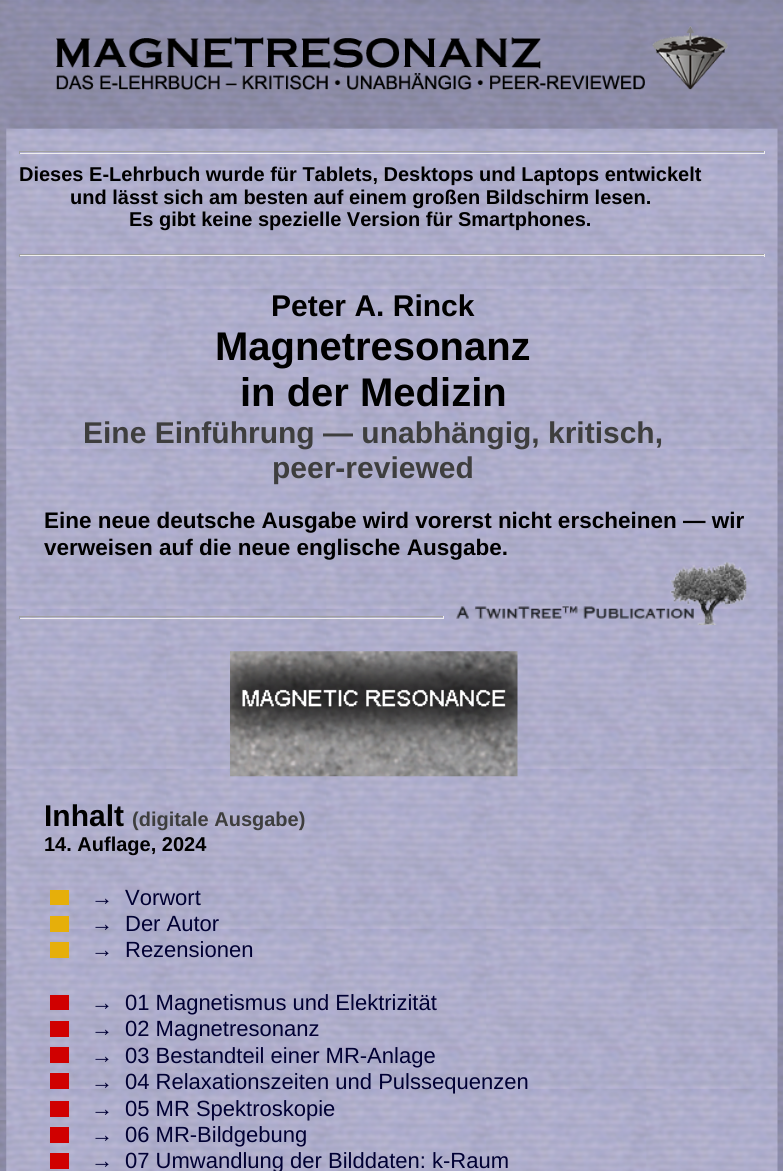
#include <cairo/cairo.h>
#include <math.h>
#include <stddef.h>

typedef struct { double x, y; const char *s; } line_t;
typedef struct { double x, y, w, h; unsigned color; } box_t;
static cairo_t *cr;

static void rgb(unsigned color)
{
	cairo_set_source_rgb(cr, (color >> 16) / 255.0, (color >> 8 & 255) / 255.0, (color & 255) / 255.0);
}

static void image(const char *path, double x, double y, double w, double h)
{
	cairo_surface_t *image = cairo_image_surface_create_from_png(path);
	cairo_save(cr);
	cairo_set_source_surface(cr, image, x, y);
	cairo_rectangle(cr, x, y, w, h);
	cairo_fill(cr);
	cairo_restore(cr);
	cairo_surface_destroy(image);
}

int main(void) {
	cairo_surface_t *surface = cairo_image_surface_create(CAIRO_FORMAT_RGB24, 783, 1171);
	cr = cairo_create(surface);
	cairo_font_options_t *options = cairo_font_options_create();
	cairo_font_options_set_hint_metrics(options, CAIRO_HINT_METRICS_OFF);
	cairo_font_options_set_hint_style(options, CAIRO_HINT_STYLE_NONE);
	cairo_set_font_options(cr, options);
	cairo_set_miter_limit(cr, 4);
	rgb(0xffffff);
	cairo_paint(cr);
	image("img/1.png", 0, 0, 783, 1171);
	image("img/2.png", 56, 26, 672, 64);
	image("img/3.png", 6, 128, 772, 1043);
	{
		static const box_t items[] = {
			{19, 151, 746, 1, 0x9f9f9f},
			{764, 151, 1, 3, 0xeeeeee},
			{19, 153, 746, 1, 0xeeeeee},
			{19, 151, 1, 3, 0x9f9f9f},
			{19, 254, 746, 1, 0x9f9f9f},
			{764, 254, 1, 3, 0xeeeeee},
			{19, 255, 746, 1, 0xeeeeee},
			{19, 254, 1, 3, 0x9f9f9f},
			{19, 616, 425, 1, 0x9f9f9f},
			{443, 616, 1, 3, 0xeeeeee},
			{19, 618, 425, 1, 0xeeeeee},
			{19, 616, 1, 3, 0x9f9f9f},
		};
		for (size_t i = 0; i < sizeof items / sizeof *items; i++) {
			rgb(items[i].color);
			cairo_rectangle(cr, items[i].x, items[i].y, items[i].w, items[i].h);
			cairo_fill(cr);
		}
	}
	image("img/4.png", 456, 562, 291, 63);
	image("img/5.png", 230, 651, 288, 126);
	{
		static const box_t items[] = {
			{50, 890, 19, 15, 0xe6af0a},
			{50, 916, 19, 16, 0xe6af0a},
			{50, 942, 19, 16, 0xe6af0a},
			{50, 995, 19, 15, 0xd00000},
			{50, 1021, 19, 16, 0xd00000},
			{50, 1047, 19, 16, 0xd00000},
			{50, 1073, 19, 16, 0xd00000},
			{50, 1101, 19, 16, 0xd00000},
			{50, 1127, 19, 16, 0xd00000},
			{50, 1153, 19, 16, 0xd00000},
		};
		for (size_t i = 0; i < sizeof items / sizeof *items; i++) {
			rgb(items[i].color);
			cairo_rectangle(cr, items[i].x, items[i].y, items[i].w, items[i].h);
			cairo_fill(cr);
		}
	}
	cairo_select_font_face(cr, "Liberation Sans", CAIRO_FONT_SLANT_NORMAL, CAIRO_FONT_WEIGHT_BOLD);
	cairo_set_font_size(cr, 20);
	rgb(0x000000);
	{
		static const line_t items[] = {
			{19, 181, "Dieses E-Lehrbuch wurde für Tablets, Desktops und Laptops entwickelt"},
			{70, 204, "und lässt sich am besten auf einem großen Bildschirm lesen."},
			{129, 226, "Es gibt keine spezielle Version für Smartphones."},
		};
		for (size_t i = 0; i < sizeof items / sizeof *items; i++) {
			cairo_move_to(cr, items[i].x, items[i].y);
			cairo_show_text(cr, items[i].s);
		}
	}
	cairo_set_font_size(cr, 30);
	cairo_move_to(cr, 271, 316);
	cairo_show_text(cr, "Peter A. Rinck");
	cairo_set_font_size(cr, 40);
	cairo_move_to(cr, 215, 360);
	cairo_show_text(cr, "Magnetresonanz");
	cairo_move_to(cr, 240, 406);
	cairo_show_text(cr, "in der Medizin");
	cairo_set_font_size(cr, 30);
	rgb(0x3e3e3e);
	cairo_move_to(cr, 83, 443);
	cairo_show_text(cr, "Eine Einführung — unabhängig, kritisch,");
	cairo_move_to(cr, 272, 478);
	cairo_show_text(cr, "peer-reviewed");
	cairo_set_font_size(cr, 22.5);
	rgb(0x000000);
	cairo_move_to(cr, 44, 528);
	cairo_show_text(cr, "Eine neue deutsche Ausgabe wird vorerst nicht erscheinen — wir");
	cairo_move_to(cr, 44, 555);
	cairo_show_text(cr, "verweisen auf die neue englische Ausgabe.");
	cairo_set_font_size(cr, 30);
	cairo_move_to(cr, 44, 826);
	cairo_show_text(cr, "Inhalt");
	cairo_set_font_size(cr, 20);
	rgb(0x3e3e3e);
	cairo_move_to(cr, 132, 826);
	cairo_show_text(cr, "(digitale Ausgabe)");
	rgb(0x000000);
	cairo_move_to(cr, 44, 851);
	cairo_show_text(cr, "14. Auflage, 2024");
	cairo_set_font_size(cr, 22);
	rgb(0x000033);
	cairo_move_to(cr, 91, 905);
	cairo_show_text(cr, "→");
	cairo_select_font_face(cr, "Liberation Sans", CAIRO_FONT_SLANT_NORMAL, CAIRO_FONT_WEIGHT_NORMAL);
	cairo_move_to(cr, 125, 905);
	cairo_show_text(cr, "Vorwort");
	cairo_select_font_face(cr, "Liberation Sans", CAIRO_FONT_SLANT_NORMAL, CAIRO_FONT_WEIGHT_BOLD);
	cairo_move_to(cr, 91, 931);
	cairo_show_text(cr, "→");
	cairo_select_font_face(cr, "Liberation Sans", CAIRO_FONT_SLANT_NORMAL, CAIRO_FONT_WEIGHT_NORMAL);
	cairo_move_to(cr, 125, 931);
	cairo_show_text(cr, "Der Autor");
	cairo_select_font_face(cr, "Liberation Sans", CAIRO_FONT_SLANT_NORMAL, CAIRO_FONT_WEIGHT_BOLD);
	cairo_move_to(cr, 91, 957);
	cairo_show_text(cr, "→");
	cairo_select_font_face(cr, "Liberation Sans", CAIRO_FONT_SLANT_NORMAL, CAIRO_FONT_WEIGHT_NORMAL);
	cairo_move_to(cr, 125, 957);
	cairo_show_text(cr, "Rezensionen");
	cairo_select_font_face(cr, "Liberation Sans", CAIRO_FONT_SLANT_NORMAL, CAIRO_FONT_WEIGHT_BOLD);
	cairo_move_to(cr, 91, 1010);
	cairo_show_text(cr, "→");
	cairo_select_font_face(cr, "Liberation Sans", CAIRO_FONT_SLANT_NORMAL, CAIRO_FONT_WEIGHT_NORMAL);
	cairo_move_to(cr, 125, 1010);
	cairo_show_text(cr, "01 Magnetismus und Elektrizität");
	cairo_select_font_face(cr, "Liberation Sans", CAIRO_FONT_SLANT_NORMAL, CAIRO_FONT_WEIGHT_BOLD);
	cairo_move_to(cr, 91, 1036);
	cairo_show_text(cr, "→");
	cairo_select_font_face(cr, "Liberation Sans", CAIRO_FONT_SLANT_NORMAL, CAIRO_FONT_WEIGHT_NORMAL);
	cairo_move_to(cr, 125, 1036);
	cairo_show_text(cr, "02 Magnetresonanz");
	cairo_select_font_face(cr, "Liberation Sans", CAIRO_FONT_SLANT_NORMAL, CAIRO_FONT_WEIGHT_BOLD);
	cairo_move_to(cr, 91, 1063);
	cairo_show_text(cr, "→");
	cairo_select_font_face(cr, "Liberation Sans", CAIRO_FONT_SLANT_NORMAL, CAIRO_FONT_WEIGHT_NORMAL);
	cairo_move_to(cr, 125, 1063);
	cairo_show_text(cr, "03 Bestandteil einer MR-Anlage");
	cairo_select_font_face(cr, "Liberation Sans", CAIRO_FONT_SLANT_NORMAL, CAIRO_FONT_WEIGHT_BOLD);
	cairo_move_to(cr, 91, 1089);
	cairo_show_text(cr, "→");
	cairo_select_font_face(cr, "Liberation Sans", CAIRO_FONT_SLANT_NORMAL, CAIRO_FONT_WEIGHT_NORMAL);
	cairo_move_to(cr, 125, 1089);
	cairo_show_text(cr, "04 Relaxationszeiten und Pulssequenzen");
	cairo_select_font_face(cr, "Liberation Sans", CAIRO_FONT_SLANT_NORMAL, CAIRO_FONT_WEIGHT_BOLD);
	cairo_move_to(cr, 91, 1116);
	cairo_show_text(cr, "→");
	cairo_select_font_face(cr, "Liberation Sans", CAIRO_FONT_SLANT_NORMAL, CAIRO_FONT_WEIGHT_NORMAL);
	cairo_move_to(cr, 125, 1116);
	cairo_show_text(cr, "05 MR Spektroskopie");
	cairo_select_font_face(cr, "Liberation Sans", CAIRO_FONT_SLANT_NORMAL, CAIRO_FONT_WEIGHT_BOLD);
	cairo_move_to(cr, 91, 1142);
	cairo_show_text(cr, "→");
	cairo_select_font_face(cr, "Liberation Sans", CAIRO_FONT_SLANT_NORMAL, CAIRO_FONT_WEIGHT_NORMAL);
	cairo_move_to(cr, 125, 1142);
	cairo_show_text(cr, "06 MR-Bildgebung");
	cairo_select_font_face(cr, "Liberation Sans", CAIRO_FONT_SLANT_NORMAL, CAIRO_FONT_WEIGHT_BOLD);
	cairo_move_to(cr, 91, 1168);
	cairo_show_text(cr, "→");
	cairo_select_font_face(cr, "Liberation Sans", CAIRO_FONT_SLANT_NORMAL, CAIRO_FONT_WEIGHT_NORMAL);
	cairo_move_to(cr, 125, 1168);
	cairo_show_text(cr, "07 Umwandlung der Bilddaten: k-Raum");
	cairo_surface_write_to_png(surface, "page.png");
	cairo_font_options_destroy(options);
	cairo_destroy(cr);
	cairo_surface_destroy(surface);
	return 0;
}
